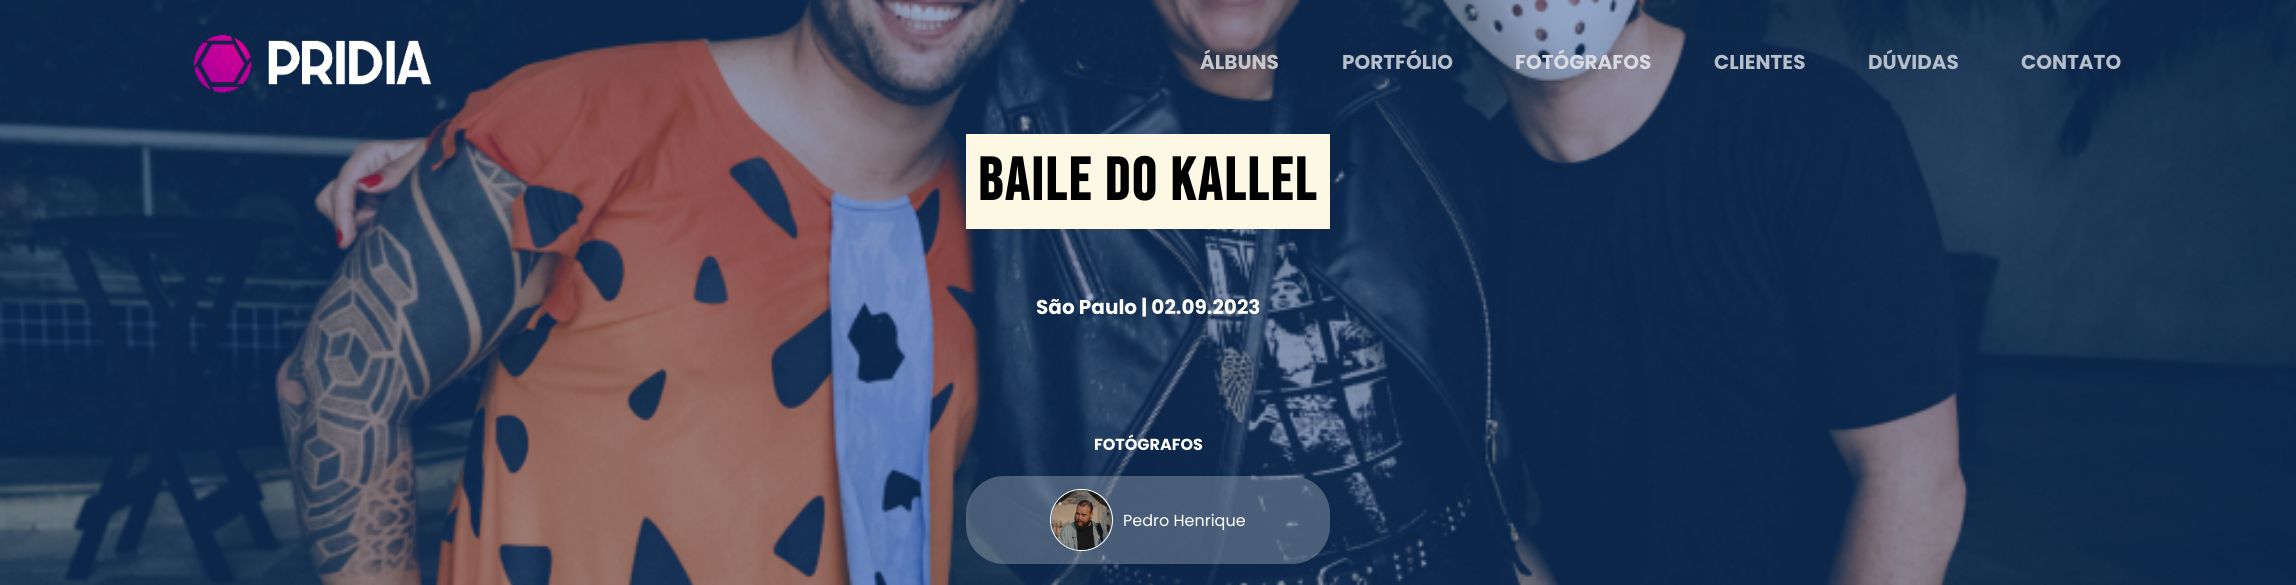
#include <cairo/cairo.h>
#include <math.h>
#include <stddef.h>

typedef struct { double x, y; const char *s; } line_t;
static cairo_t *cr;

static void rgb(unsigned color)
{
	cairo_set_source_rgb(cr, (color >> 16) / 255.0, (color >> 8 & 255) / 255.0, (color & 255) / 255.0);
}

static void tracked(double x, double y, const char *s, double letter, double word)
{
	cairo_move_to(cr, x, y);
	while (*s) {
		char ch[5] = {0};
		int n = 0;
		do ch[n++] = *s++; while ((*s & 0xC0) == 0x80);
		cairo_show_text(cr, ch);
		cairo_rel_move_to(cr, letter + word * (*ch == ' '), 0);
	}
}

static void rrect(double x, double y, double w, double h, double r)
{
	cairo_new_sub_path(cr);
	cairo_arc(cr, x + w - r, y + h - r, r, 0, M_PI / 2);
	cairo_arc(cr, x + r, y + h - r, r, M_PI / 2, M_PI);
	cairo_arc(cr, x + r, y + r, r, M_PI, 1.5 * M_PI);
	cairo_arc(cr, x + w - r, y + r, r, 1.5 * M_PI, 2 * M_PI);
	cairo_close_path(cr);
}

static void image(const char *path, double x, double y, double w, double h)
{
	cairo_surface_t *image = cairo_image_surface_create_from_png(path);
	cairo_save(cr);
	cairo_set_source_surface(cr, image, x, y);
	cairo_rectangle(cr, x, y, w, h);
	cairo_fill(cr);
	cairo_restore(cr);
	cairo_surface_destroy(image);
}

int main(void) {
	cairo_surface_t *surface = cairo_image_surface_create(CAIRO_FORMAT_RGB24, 2296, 585);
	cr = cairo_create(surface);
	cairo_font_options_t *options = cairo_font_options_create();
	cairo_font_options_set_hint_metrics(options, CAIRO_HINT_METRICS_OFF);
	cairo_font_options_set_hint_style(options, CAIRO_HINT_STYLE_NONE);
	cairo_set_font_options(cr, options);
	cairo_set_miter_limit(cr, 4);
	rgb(0xffffff);
	cairo_paint(cr);
	image("img/3.png", 0, 0, 2296, 585);
	image("img/1.png", 193, 35, 59, 58);
	image("img/2.png", 268, 40, 164, 45);
	rgb(0xfcf8e3);
	cairo_rectangle(cr, 966, 134, 364, 95);
	cairo_fill(cr);
	cairo_set_source_rgba(cr, 1, 1, 1, 0.25);
	rrect(966, 476, 364, 88, 38);
	cairo_fill(cr);
	rrect(1050.5, 489.5, 62, 61, 30.5);
	rgb(0xffffff);
	cairo_set_line_width(cr, 1);
	cairo_stroke(cr);
	image("img/4.png", 1051, 490, 60, 60);
	cairo_select_font_face(cr, "Poppins", CAIRO_FONT_SLANT_NORMAL, CAIRO_FONT_WEIGHT_BOLD);
	cairo_set_font_size(cr, 20);
	rgb(0xc5c5cb);
	cairo_move_to(cr, 1200, 69);
	cairo_show_text(cr, "ÁLBUNS");
	rgb(0xb6bec9);
	cairo_move_to(cr, 1342, 69);
	cairo_show_text(cr, "PORTFÓLIO");
	rgb(0xd8dae2);
	cairo_move_to(cr, 1515, 69);
	cairo_show_text(cr, "FOTÓGRAFOS");
	rgb(0xb6bec9);
	{
		static const line_t items[] = {
			{1714, 69, "CLIENTES"},
			{1868, 69, "DÚVIDAS"},
			{2021, 69, "CONTATO"},
		};
		for (size_t i = 0; i < sizeof items / sizeof *items; i++) {
			cairo_move_to(cr, items[i].x, items[i].y);
			cairo_show_text(cr, items[i].s);
		}
	}
	cairo_select_font_face(cr, "Bebas Neue", CAIRO_FONT_SLANT_NORMAL, CAIRO_FONT_WEIGHT_BOLD);
	cairo_set_font_size(cr, 60);
	rgb(0x000000);
	tracked(978, 200, "BAILE DO KALLEL", 2.5, 0);
	cairo_select_font_face(cr, "Poppins", CAIRO_FONT_SLANT_NORMAL, CAIRO_FONT_WEIGHT_BOLD);
	cairo_set_font_size(cr, 20);
	rgb(0xffffff);
	cairo_move_to(cr, 1036, 314);
	cairo_show_text(cr, "São Paulo | 02.09.2023");
	cairo_set_font_size(cr, 16);
	cairo_move_to(cr, 1094, 450);
	cairo_show_text(cr, "FOTÓGRAFOS");
	cairo_select_font_face(cr, "Poppins", CAIRO_FONT_SLANT_NORMAL, CAIRO_FONT_WEIGHT_NORMAL);
	cairo_move_to(cr, 1123, 526);
	cairo_show_text(cr, "Pedro Henrique");
	cairo_surface_write_to_png(surface, "page.png");
	cairo_font_options_destroy(options);
	cairo_destroy(cr);
	cairo_surface_destroy(surface);
	return 0;
}
